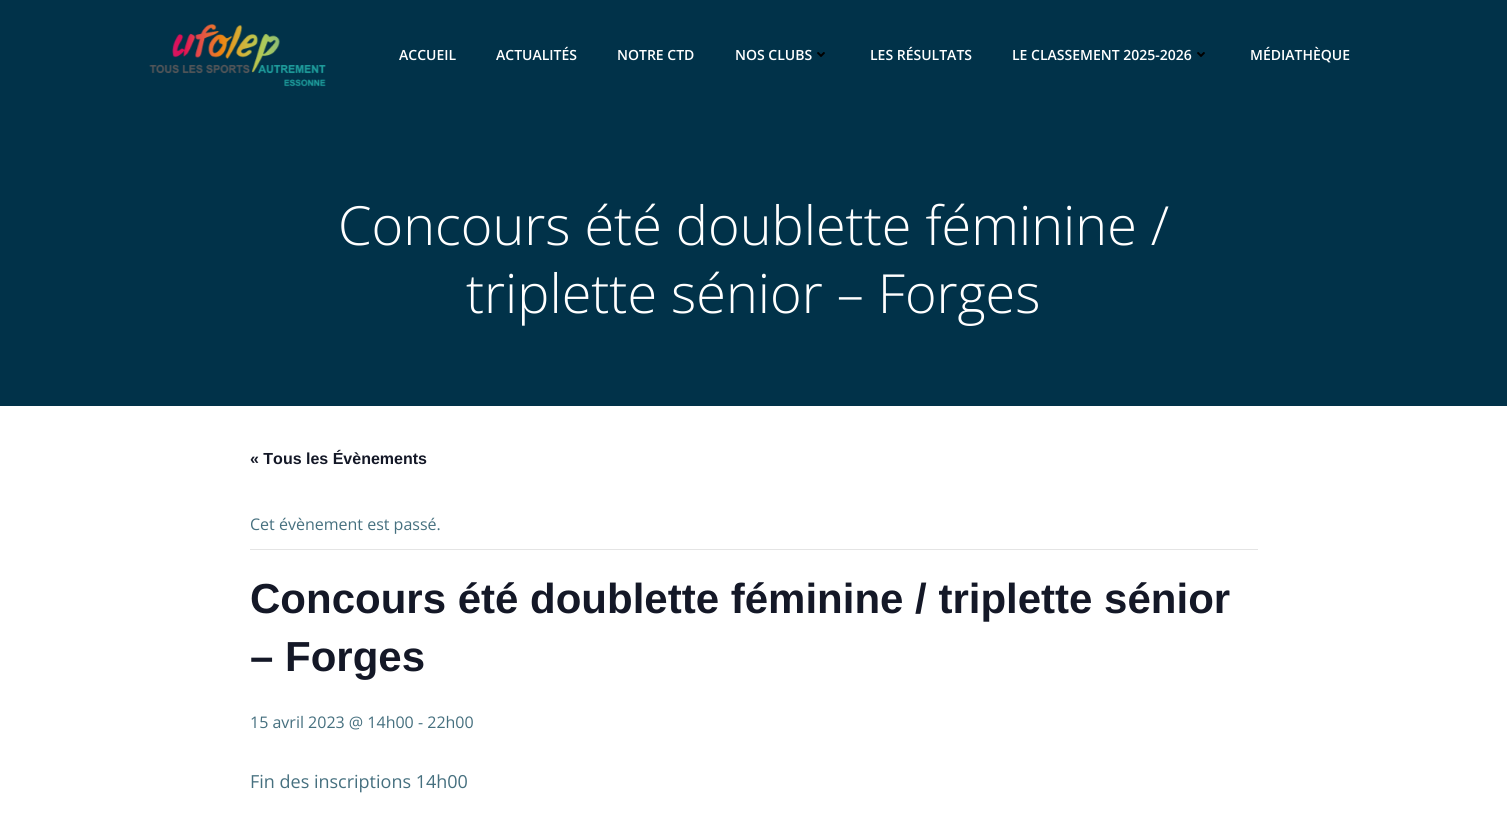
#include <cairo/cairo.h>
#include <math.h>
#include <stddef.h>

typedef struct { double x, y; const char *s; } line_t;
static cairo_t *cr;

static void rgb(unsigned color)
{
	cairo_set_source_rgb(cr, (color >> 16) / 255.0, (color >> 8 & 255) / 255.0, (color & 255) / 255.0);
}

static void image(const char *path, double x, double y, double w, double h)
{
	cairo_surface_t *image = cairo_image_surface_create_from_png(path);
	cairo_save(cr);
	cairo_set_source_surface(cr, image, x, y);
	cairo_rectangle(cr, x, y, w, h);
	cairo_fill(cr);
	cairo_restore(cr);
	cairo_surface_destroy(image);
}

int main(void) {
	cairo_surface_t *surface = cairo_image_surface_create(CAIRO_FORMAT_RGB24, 1507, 815);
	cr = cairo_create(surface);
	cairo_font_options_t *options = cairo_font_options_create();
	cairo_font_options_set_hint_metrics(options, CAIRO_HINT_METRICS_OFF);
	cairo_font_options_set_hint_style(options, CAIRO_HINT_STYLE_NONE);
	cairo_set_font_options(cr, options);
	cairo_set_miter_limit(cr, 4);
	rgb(0xffffff);
	cairo_paint(cr);
	rgb(0x013249);
	cairo_rectangle(cr, 0, 0, 1507, 406);
	cairo_fill(cr);
	image("img/1.png", 149, 24, 177, 63);
	image("img/2.png", 817, 52, 8, 5);
	image("img/2.png", 1197, 52, 8, 5);
	rgb(0xe4e4e4);
	cairo_rectangle(cr, 250, 549, 1008, 1);
	cairo_fill(cr);
	cairo_select_font_face(cr, "Open Sans SemiBold", CAIRO_FONT_SLANT_NORMAL, CAIRO_FONT_WEIGHT_NORMAL);
	cairo_set_font_size(cr, 14);
	rgb(0xffffff);
	{
		static const line_t items[] = {
			{399, 60, "ACCUEIL"},
			{496, 60, "ACTUALITÉS"},
			{617, 60, "NOTRE CTD"},
			{735, 60, "NOS CLUBS"},
			{870, 60, "LES RÉSULTATS"},
			{1012, 60, "LE CLASSEMENT 2025-2026"},
			{1250, 60, "MÉDIATHÈQUE"},
		};
		for (size_t i = 0; i < sizeof items / sizeof *items; i++) {
			cairo_move_to(cr, items[i].x, items[i].y);
			cairo_show_text(cr, items[i].s);
		}
	}
	cairo_select_font_face(cr, "Open Sans Light", CAIRO_FONT_SLANT_NORMAL, CAIRO_FONT_WEIGHT_NORMAL);
	cairo_set_font_size(cr, 54);
	cairo_move_to(cr, 338, 245);
	cairo_show_text(cr, "Concours été doublette féminine /");
	cairo_move_to(cr, 466, 313);
	cairo_show_text(cr, "triplette sénior – Forges");
	cairo_select_font_face(cr, "Liberation Sans", CAIRO_FONT_SLANT_NORMAL, CAIRO_FONT_WEIGHT_BOLD);
	cairo_set_font_size(cr, 16);
	rgb(0x141827);
	cairo_move_to(cr, 250, 464);
	cairo_show_text(cr, "« Tous les Évènements");
	cairo_select_font_face(cr, "Open Sans", CAIRO_FONT_SLANT_NORMAL, CAIRO_FONT_WEIGHT_NORMAL);
	rgb(0x46707f);
	cairo_move_to(cr, 250, 530);
	cairo_show_text(cr, "Cet évènement est passé.");
	cairo_select_font_face(cr, "Liberation Sans", CAIRO_FONT_SLANT_NORMAL, CAIRO_FONT_WEIGHT_BOLD);
	cairo_set_font_size(cr, 42);
	rgb(0x141827);
	cairo_move_to(cr, 250, 613);
	cairo_show_text(cr, "Concours été doublette féminine / triplette sénior");
	cairo_move_to(cr, 250, 671);
	cairo_show_text(cr, "– Forges");
	cairo_select_font_face(cr, "Open Sans", CAIRO_FONT_SLANT_NORMAL, CAIRO_FONT_WEIGHT_NORMAL);
	cairo_set_font_size(cr, 16);
	rgb(0x46707f);
	cairo_move_to(cr, 250, 728);
	cairo_show_text(cr, "15 avril 2023 @ 14h00 - 22h00");
	cairo_set_font_size(cr, 18);
	cairo_move_to(cr, 250, 788);
	cairo_show_text(cr, "Fin des inscriptions 14h00");
	cairo_surface_write_to_png(surface, "page.png");
	cairo_font_options_destroy(options);
	cairo_destroy(cr);
	cairo_surface_destroy(surface);
	return 0;
}
